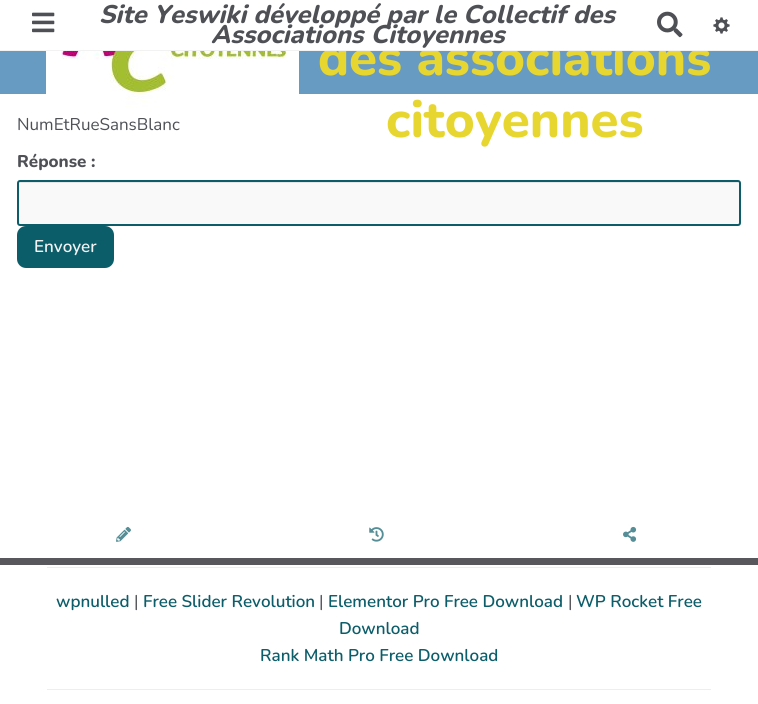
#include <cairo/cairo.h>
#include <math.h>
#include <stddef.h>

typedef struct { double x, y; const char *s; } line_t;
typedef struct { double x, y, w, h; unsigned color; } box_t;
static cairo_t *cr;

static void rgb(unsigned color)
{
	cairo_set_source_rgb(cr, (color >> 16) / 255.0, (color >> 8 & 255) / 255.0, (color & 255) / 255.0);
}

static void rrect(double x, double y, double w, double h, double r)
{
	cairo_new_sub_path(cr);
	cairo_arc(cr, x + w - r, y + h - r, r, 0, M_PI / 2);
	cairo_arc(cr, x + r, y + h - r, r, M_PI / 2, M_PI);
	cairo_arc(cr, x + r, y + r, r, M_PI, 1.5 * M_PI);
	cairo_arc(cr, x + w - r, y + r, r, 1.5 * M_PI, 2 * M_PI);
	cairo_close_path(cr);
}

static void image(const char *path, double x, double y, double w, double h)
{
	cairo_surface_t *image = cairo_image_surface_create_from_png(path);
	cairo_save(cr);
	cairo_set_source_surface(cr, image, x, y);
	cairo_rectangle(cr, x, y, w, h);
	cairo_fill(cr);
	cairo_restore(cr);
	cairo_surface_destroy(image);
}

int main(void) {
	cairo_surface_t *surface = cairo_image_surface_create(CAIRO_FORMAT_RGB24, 758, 704);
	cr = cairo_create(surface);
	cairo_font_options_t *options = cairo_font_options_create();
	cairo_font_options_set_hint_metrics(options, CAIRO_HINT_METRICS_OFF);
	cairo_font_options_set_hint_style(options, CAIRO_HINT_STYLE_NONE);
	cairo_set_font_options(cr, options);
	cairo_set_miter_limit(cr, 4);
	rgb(0xffffff);
	cairo_paint(cr);
	image("img/1.png", 32, 12, 23, 21);
	image("img/3.png", 713, 17, 17, 17);
	rgb(0x679bc2);
	cairo_rectangle(cr, 0, 51, 758, 43);
	cairo_fill(cr);
	image("img/4.png", 46, 51, 253, 56);
	rgb(0xf9f9f9);
	rrect(17, 180, 724, 46, 3);
	cairo_fill(cr);
	rgb(0xe6e6e6);
	cairo_new_path(cr);
	cairo_move_to(cr, 20, 182);
	cairo_line_to(cr, 19, 183);
	cairo_line_to(cr, 739, 183);
	cairo_line_to(cr, 738, 182);
	cairo_close_path(cr);
	cairo_fill(cr);
	rrect(18, 181, 722, 44, 2);
	rgb(0x0c5d6a);
	cairo_stroke(cr);
	rrect(17, 226, 97, 42, 9);
	cairo_fill(cr);
	image("img/5.png", 116, 526, 15, 16);
	image("img/6.png", 369, 527, 15, 15);
	image("img/7.png", 623, 526, 14, 16);
	{
		static const box_t items[] = {
			{0, 558, 758, 7, 0x57575c},
			{47, 567, 664, 1, 0xeeeeee},
			{47, 689, 664, 1, 0xeeeeee},
		};
		for (size_t i = 0; i < sizeof items / sizeof *items; i++) {
			rgb(items[i].color);
			cairo_rectangle(cr, items[i].x, items[i].y, items[i].w, items[i].h);
			cairo_fill(cr);
		}
	}
	cairo_select_font_face(cr, "Nunito ExtraBold", CAIRO_FONT_SLANT_ITALIC, CAIRO_FONT_WEIGHT_NORMAL);
	cairo_set_font_size(cr, 25.5);
	rgb(0x4e5056);
	cairo_move_to(cr, 99, 23);
	cairo_show_text(cr, "Site Yeswiki développé par le Collectif des");
	cairo_select_font_face(cr, "Nunito ExtraBold", CAIRO_FONT_SLANT_NORMAL, CAIRO_FONT_WEIGHT_NORMAL);
	cairo_set_font_size(cr, 51);
	rgb(0xe8d630);
	cairo_move_to(cr, 318, 75);
	cairo_show_text(cr, "des associations");
	rgb(0xffffff);
	cairo_rectangle(cr, 327, 37, 377, 13);
	cairo_fill(cr);
	image("img/2.png", 657, 11, 26, 27);
	cairo_select_font_face(cr, "Nunito ExtraBold", CAIRO_FONT_SLANT_ITALIC, CAIRO_FONT_WEIGHT_NORMAL);
	cairo_set_font_size(cr, 25.5);
	rgb(0x4e5056);
	cairo_move_to(cr, 211, 43);
	cairo_show_text(cr, "Associations Citoyennes");
	rgb(0xf2f2f2);
	cairo_rectangle(cr, 0, 50, 758, 1);
	cairo_fill(cr);
	cairo_select_font_face(cr, "Nunito ExtraBold", CAIRO_FONT_SLANT_NORMAL, CAIRO_FONT_WEIGHT_NORMAL);
	cairo_set_font_size(cr, 51);
	rgb(0xe8d630);
	cairo_move_to(cr, 386, 137);
	cairo_show_text(cr, "citoyennes");
	cairo_select_font_face(cr, "Nunito", CAIRO_FONT_SLANT_NORMAL, CAIRO_FONT_WEIGHT_NORMAL);
	cairo_set_font_size(cr, 17);
	rgb(0x4e5056);
	cairo_move_to(cr, 17, 130);
	cairo_show_text(cr, "NumEtRueSansBlanc");
	cairo_select_font_face(cr, "Nunito ExtraBold", CAIRO_FONT_SLANT_NORMAL, CAIRO_FONT_WEIGHT_NORMAL);
	cairo_move_to(cr, 17, 167);
	cairo_show_text(cr, "Réponse :");
	cairo_select_font_face(cr, "Nunito SemiBold", CAIRO_FONT_SLANT_NORMAL, CAIRO_FONT_WEIGHT_NORMAL);
	rgb(0xf2f2f2);
	cairo_move_to(cr, 34, 252);
	cairo_show_text(cr, "Envoyer");
	rgb(0x0c5d6a);
	cairo_move_to(cr, 56, 607);
	cairo_show_text(cr, "wpnulled");
	cairo_select_font_face(cr, "Nunito", CAIRO_FONT_SLANT_NORMAL, CAIRO_FONT_WEIGHT_NORMAL);
	rgb(0x4e5056);
	cairo_move_to(cr, 134, 607);
	cairo_show_text(cr, "|");
	cairo_select_font_face(cr, "Nunito SemiBold", CAIRO_FONT_SLANT_NORMAL, CAIRO_FONT_WEIGHT_NORMAL);
	rgb(0x0c5d6a);
	cairo_move_to(cr, 143, 607);
	cairo_show_text(cr, "Free Slider Revolution");
	cairo_select_font_face(cr, "Nunito", CAIRO_FONT_SLANT_NORMAL, CAIRO_FONT_WEIGHT_NORMAL);
	rgb(0x4e5056);
	cairo_move_to(cr, 319, 607);
	cairo_show_text(cr, "|");
	cairo_select_font_face(cr, "Nunito SemiBold", CAIRO_FONT_SLANT_NORMAL, CAIRO_FONT_WEIGHT_NORMAL);
	rgb(0x0c5d6a);
	cairo_move_to(cr, 328, 607);
	cairo_show_text(cr, "Elementor Pro Free Download");
	cairo_select_font_face(cr, "Nunito", CAIRO_FONT_SLANT_NORMAL, CAIRO_FONT_WEIGHT_NORMAL);
	rgb(0x4e5056);
	cairo_move_to(cr, 568, 607);
	cairo_show_text(cr, "|");
	cairo_select_font_face(cr, "Nunito SemiBold", CAIRO_FONT_SLANT_NORMAL, CAIRO_FONT_WEIGHT_NORMAL);
	rgb(0x0c5d6a);
	{
		static const line_t items[] = {
			{576, 607, "WP Rocket Free"},
			{339, 634, "Download"},
			{260, 661, "Rank Math Pro Free Download"},
		};
		for (size_t i = 0; i < sizeof items / sizeof *items; i++) {
			cairo_move_to(cr, items[i].x, items[i].y);
			cairo_show_text(cr, items[i].s);
		}
	}
	cairo_surface_write_to_png(surface, "page.png");
	cairo_font_options_destroy(options);
	cairo_destroy(cr);
	cairo_surface_destroy(surface);
	return 0;
}
